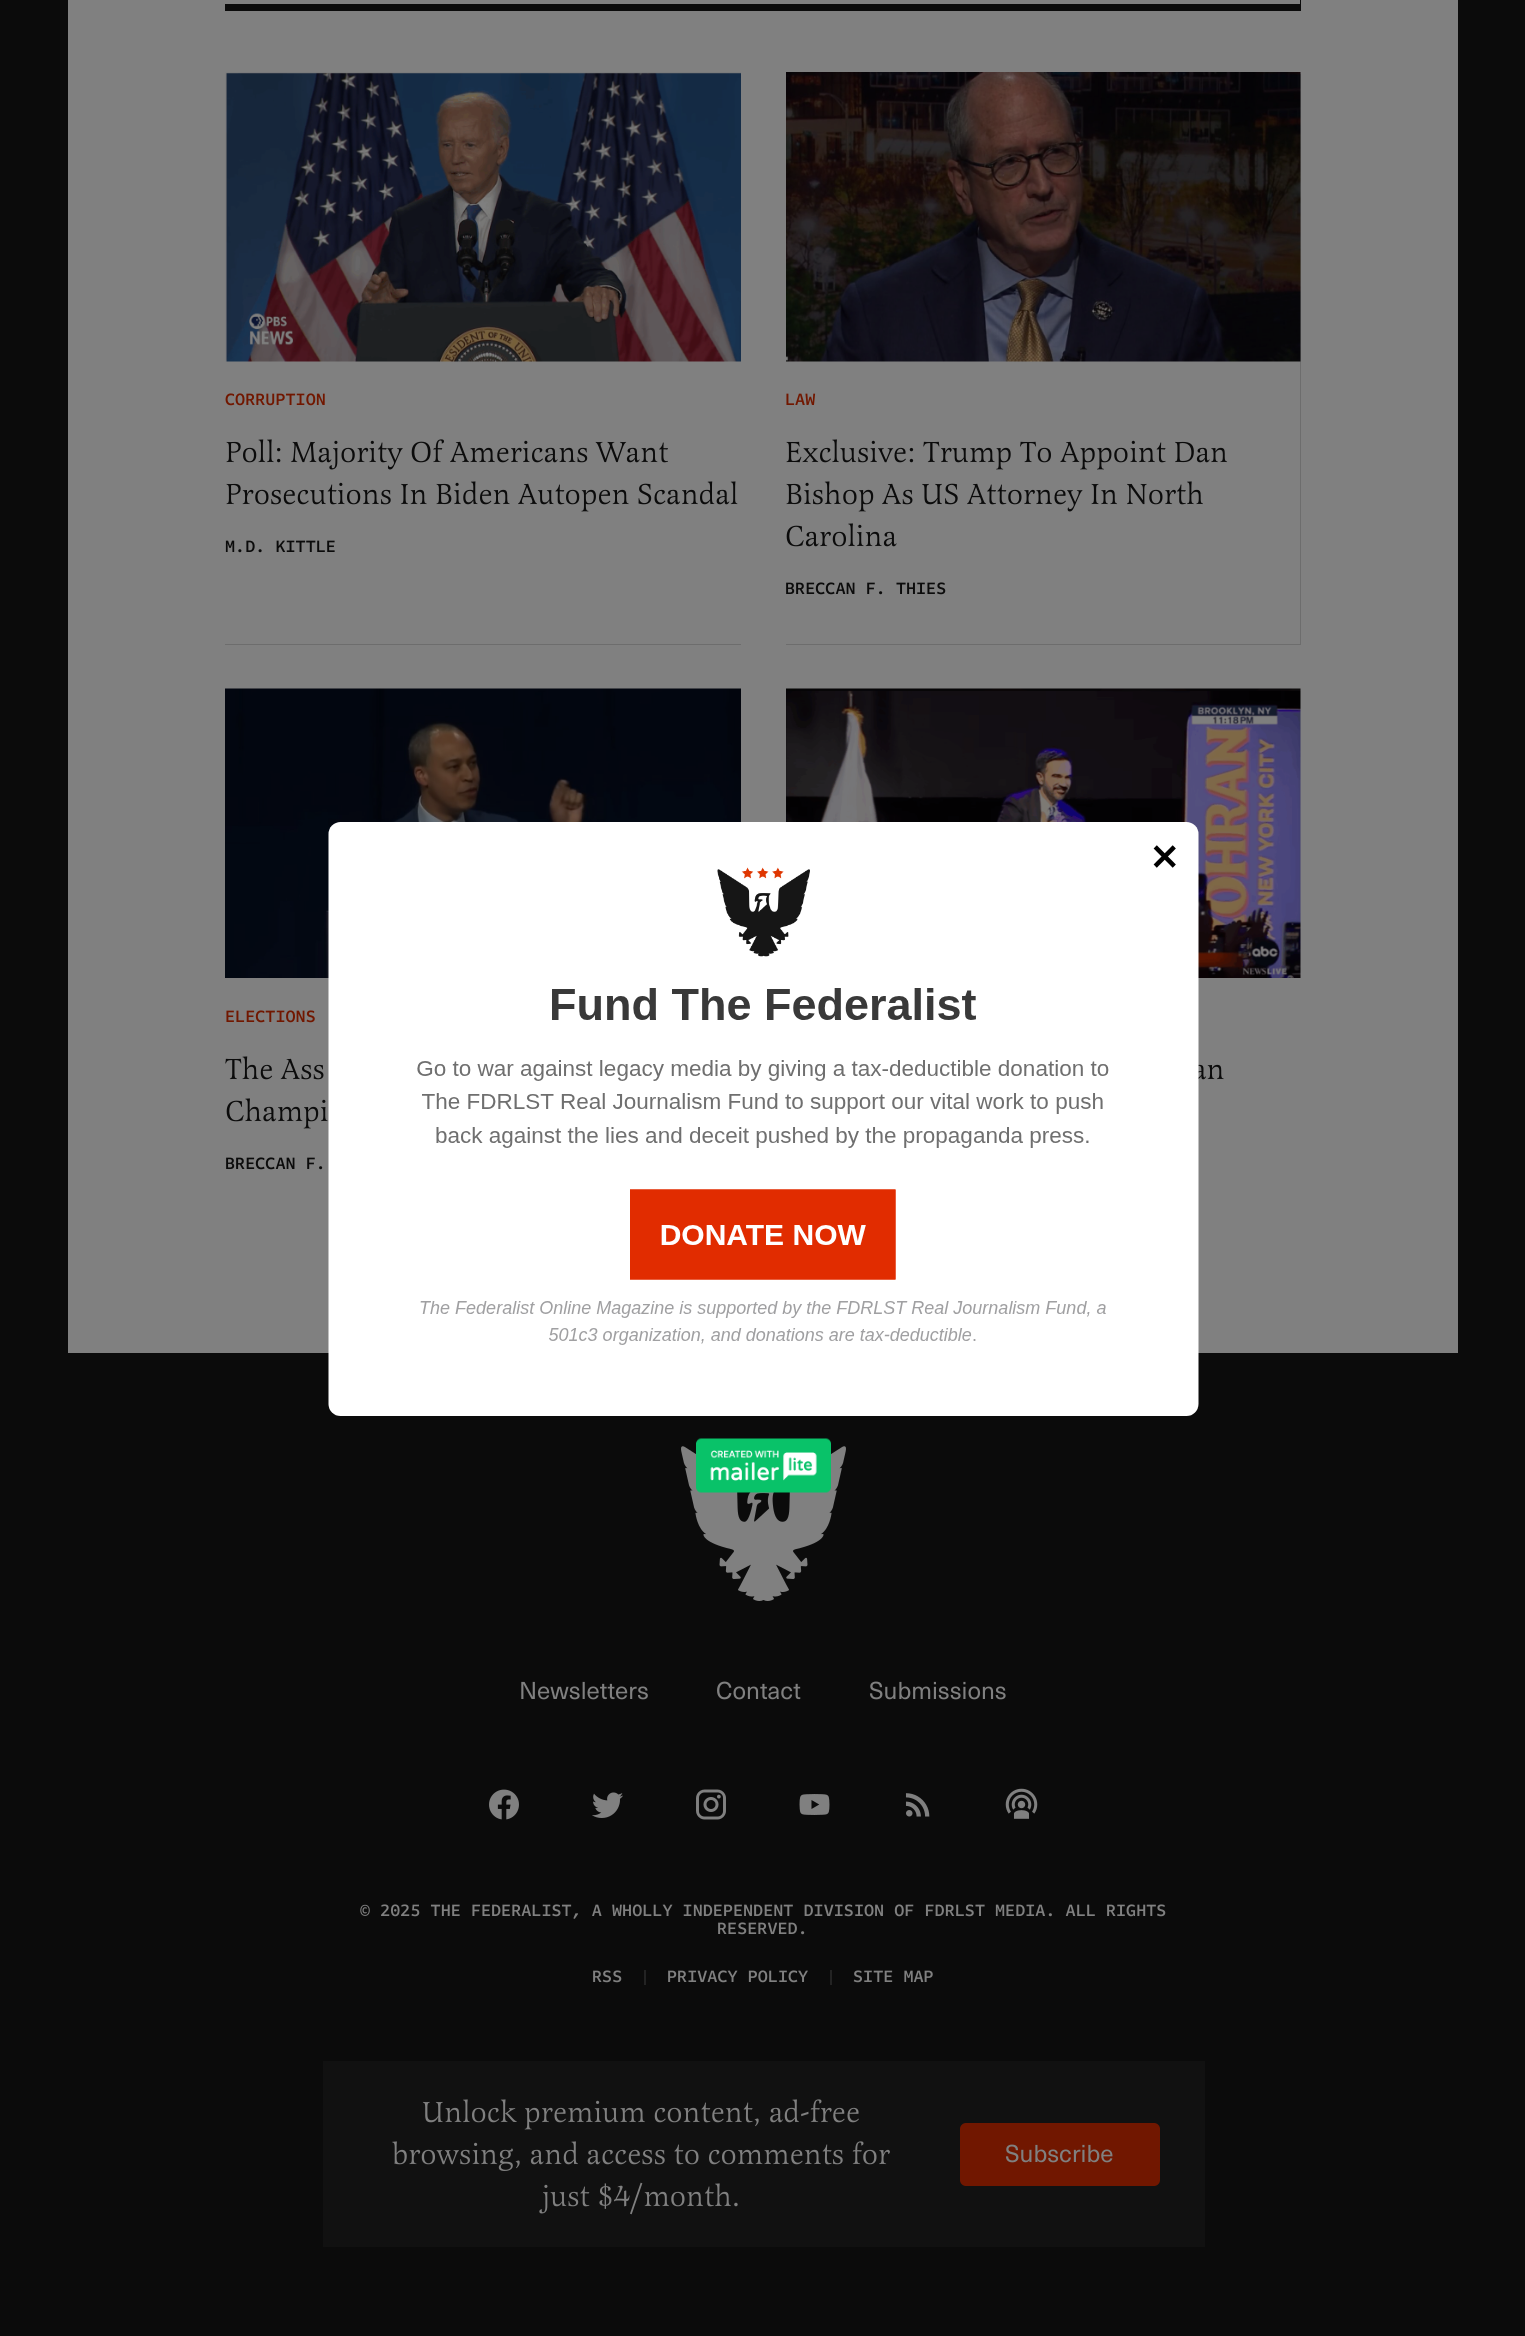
#include <cairo/cairo.h>
#include <math.h>
#include <stddef.h>

typedef struct { double x, y; const char *s; } line_t;
typedef struct { double x, y, w, h; unsigned color; } box_t;
static cairo_t *cr;

static void rgb(unsigned color)
{
	cairo_set_source_rgb(cr, (color >> 16) / 255.0, (color >> 8 & 255) / 255.0, (color & 255) / 255.0);
}

static void rrect(double x, double y, double w, double h, double r)
{
	cairo_new_sub_path(cr);
	cairo_arc(cr, x + w - r, y + h - r, r, 0, M_PI / 2);
	cairo_arc(cr, x + r, y + h - r, r, M_PI / 2, M_PI);
	cairo_arc(cr, x + r, y + r, r, M_PI, 1.5 * M_PI);
	cairo_arc(cr, x + w - r, y + r, r, 1.5 * M_PI, 2 * M_PI);
	cairo_close_path(cr);
}

static void image(const char *path, double x, double y, double w, double h)
{
	cairo_surface_t *image = cairo_image_surface_create_from_png(path);
	cairo_save(cr);
	cairo_set_source_surface(cr, image, x, y);
	cairo_rectangle(cr, x, y, w, h);
	cairo_fill(cr);
	cairo_restore(cr);
	cairo_surface_destroy(image);
}

int main(void) {
	cairo_surface_t *surface = cairo_image_surface_create(CAIRO_FORMAT_RGB24, 1525, 2336);
	cr = cairo_create(surface);
	cairo_font_options_t *options = cairo_font_options_create();
	cairo_font_options_set_hint_metrics(options, CAIRO_HINT_METRICS_OFF);
	cairo_font_options_set_hint_style(options, CAIRO_HINT_STYLE_NONE);
	cairo_set_font_options(cr, options);
	cairo_set_miter_limit(cr, 4);
	rgb(0x0b0b0b);
	cairo_paint(cr);
	rgb(0x808080);
	cairo_rectangle(cr, 68, 0, 1390, 1353);
	cairo_fill(cr);
	rgb(0x0b0b0b);
	cairo_new_path(cr);
	cairo_move_to(cr, 225, 4);
	cairo_line_to(cr, 225, 11);
	cairo_line_to(cr, 1301, 11);
	cairo_line_to(cr, 1301, -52);
	cairo_line_to(cr, 1300, -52);
	cairo_line_to(cr, 1300, 4);
	cairo_close_path(cr);
	cairo_fill(cr);
	rgb(0x6d6d6d);
	cairo_rectangle(cr, 225, 644, 516, 1);
	cairo_fill(cr);
	image("img/1.png", 225, 72, 516, 290);
	cairo_new_path(cr);
	cairo_move_to(cr, 786, 644);
	cairo_line_to(cr, 786, 645);
	cairo_line_to(cr, 1301, 645);
	cairo_line_to(cr, 1301, 74);
	cairo_line_to(cr, 1300, 74);
	cairo_line_to(cr, 1300, 644);
	cairo_close_path(cr);
	cairo_fill(cr);
	image("img/2.png", 786, 72, 515, 290);
	image("img/3.png", 225, 688, 516, 290);
	image("img/4.png", 786, 688, 515, 290);
	image("img/6.png", 681, 1446, 165, 155);
	image("img/7.png", 489, 1789, 30, 31);
	image("img/8.png", 592, 1792, 31, 26);
	image("img/9.png", 696, 1789, 30, 31);
	image("img/10.png", 799, 1794, 31, 21);
	image("img/11.png", 905, 1793, 25, 24);
	image("img/12.png", 1005, 1788, 33, 31);
	{
		static const box_t items[] = {
			{644, 1970, 2, 15, 0x232323},
			{830, 1970, 2, 15, 0x232323},
			{323, 2061, 882, 186, 0x111111},
		};
		for (size_t i = 0; i < sizeof items / sizeof *items; i++) {
			rgb(items[i].color);
			cairo_rectangle(cr, items[i].x, items[i].y, items[i].w, items[i].h);
			cairo_fill(cr);
		}
	}
	rgb(0x711700);
	rrect(960, 2123, 200, 63, 6);
	cairo_fill(cr);
	cairo_select_font_face(cr, "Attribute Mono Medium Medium", CAIRO_FONT_SLANT_NORMAL, CAIRO_FONT_WEIGHT_NORMAL);
	cairo_set_font_size(cr, 18);
	cairo_move_to(cr, 225, 405);
	cairo_show_text(cr, "CORRUPTION");
	cairo_select_font_face(cr, "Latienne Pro", CAIRO_FONT_SLANT_NORMAL, CAIRO_FONT_WEIGHT_NORMAL);
	cairo_set_font_size(cr, 30);
	rgb(0x0b0b0b);
	cairo_move_to(cr, 225, 462);
	cairo_show_text(cr, "Poll: Majority Of Americans Want");
	cairo_move_to(cr, 225, 504);
	cairo_show_text(cr, "Prosecutions In Biden Autopen Scandal");
	cairo_select_font_face(cr, "Attribute Mono Medium Medium", CAIRO_FONT_SLANT_NORMAL, CAIRO_FONT_WEIGHT_NORMAL);
	cairo_set_font_size(cr, 18);
	cairo_move_to(cr, 225, 552);
	cairo_show_text(cr, "M.D. KITTLE");
	rgb(0x711700);
	cairo_move_to(cr, 785, 405);
	cairo_show_text(cr, "LAW");
	cairo_select_font_face(cr, "Latienne Pro", CAIRO_FONT_SLANT_NORMAL, CAIRO_FONT_WEIGHT_NORMAL);
	cairo_set_font_size(cr, 30);
	rgb(0x0b0b0b);
	{
		static const line_t items[] = {
			{785, 462, "Exclusive: Trump To Appoint Dan"},
			{785, 504, "Bishop As US Attorney In North"},
			{785, 546, "Carolina"},
		};
		for (size_t i = 0; i < sizeof items / sizeof *items; i++) {
			cairo_move_to(cr, items[i].x, items[i].y);
			cairo_show_text(cr, items[i].s);
		}
	}
	cairo_select_font_face(cr, "Attribute Mono Medium Medium", CAIRO_FONT_SLANT_NORMAL, CAIRO_FONT_WEIGHT_NORMAL);
	cairo_set_font_size(cr, 18);
	cairo_move_to(cr, 785, 594);
	cairo_show_text(cr, "BRECCAN F. THIES");
	rgb(0x711700);
	cairo_move_to(cr, 225, 1022);
	cairo_show_text(cr, "ELECTIONS");
	cairo_select_font_face(cr, "Latienne Pro", CAIRO_FONT_SLANT_NORMAL, CAIRO_FONT_WEIGHT_NORMAL);
	cairo_set_font_size(cr, 30);
	rgb(0x0b0b0b);
	cairo_move_to(cr, 225, 1079);
	cairo_show_text(cr, "The Ass");
	cairo_move_to(cr, 225, 1121);
	cairo_show_text(cr, "Champi");
	cairo_select_font_face(cr, "Attribute Mono Medium Medium", CAIRO_FONT_SLANT_NORMAL, CAIRO_FONT_WEIGHT_NORMAL);
	cairo_set_font_size(cr, 18);
	cairo_move_to(cr, 225, 1169);
	cairo_show_text(cr, "BRECCAN F.");
	cairo_select_font_face(cr, "Latienne Pro", CAIRO_FONT_SLANT_NORMAL, CAIRO_FONT_WEIGHT_NORMAL);
	cairo_set_font_size(cr, 30);
	cairo_move_to(cr, 1192, 1079);
	cairo_show_text(cr, "an");
	image("img/5.png", 328, 822, 871, 671);
	cairo_select_font_face(cr, "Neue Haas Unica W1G", CAIRO_FONT_SLANT_NORMAL, CAIRO_FONT_WEIGHT_NORMAL);
	cairo_set_font_size(cr, 24);
	rgb(0x808080);
	{
		static const line_t items[] = {
			{519, 1699, "Newsletters"},
			{716, 1699, "Contact"},
			{869, 1699, "Submissions"},
		};
		for (size_t i = 0; i < sizeof items / sizeof *items; i++) {
			cairo_move_to(cr, items[i].x, items[i].y);
			cairo_show_text(cr, items[i].s);
		}
	}
	cairo_select_font_face(cr, "Attribute Mono Medium Medium", CAIRO_FONT_SLANT_NORMAL, CAIRO_FONT_WEIGHT_NORMAL);
	cairo_set_font_size(cr, 18);
	{
		static const line_t items[] = {
			{360, 1916, "© 2025 THE FEDERALIST, A WHOLLY INDEPENDENT DIVISION OF FDRLST MEDIA. ALL RIGHTS"},
			{717, 1934, "RESERVED."},
			{592, 1982, "RSS"},
			{667, 1982, "PRIVACY POLICY"},
			{853, 1982, "SITE MAP"},
		};
		for (size_t i = 0; i < sizeof items / sizeof *items; i++) {
			cairo_move_to(cr, items[i].x, items[i].y);
			cairo_show_text(cr, items[i].s);
		}
	}
	cairo_select_font_face(cr, "Latienne Pro", CAIRO_FONT_SLANT_NORMAL, CAIRO_FONT_WEIGHT_NORMAL);
	cairo_set_font_size(cr, 30);
	{
		static const line_t items[] = {
			{422, 2122, "Unlock premium content, ad-free"},
			{392, 2164, "browsing, and access to comments for"},
			{542, 2206, "just $4/month."},
		};
		for (size_t i = 0; i < sizeof items / sizeof *items; i++) {
			cairo_move_to(cr, items[i].x, items[i].y);
			cairo_show_text(cr, items[i].s);
		}
	}
	cairo_select_font_face(cr, "Neue Haas Unica W1G", CAIRO_FONT_SLANT_NORMAL, CAIRO_FONT_WEIGHT_NORMAL);
	cairo_set_font_size(cr, 24);
	cairo_move_to(cr, 1005, 2162);
	cairo_show_text(cr, "Subscribe");
	cairo_surface_write_to_png(surface, "page.png");
	cairo_font_options_destroy(options);
	cairo_destroy(cr);
	cairo_surface_destroy(surface);
	return 0;
}
